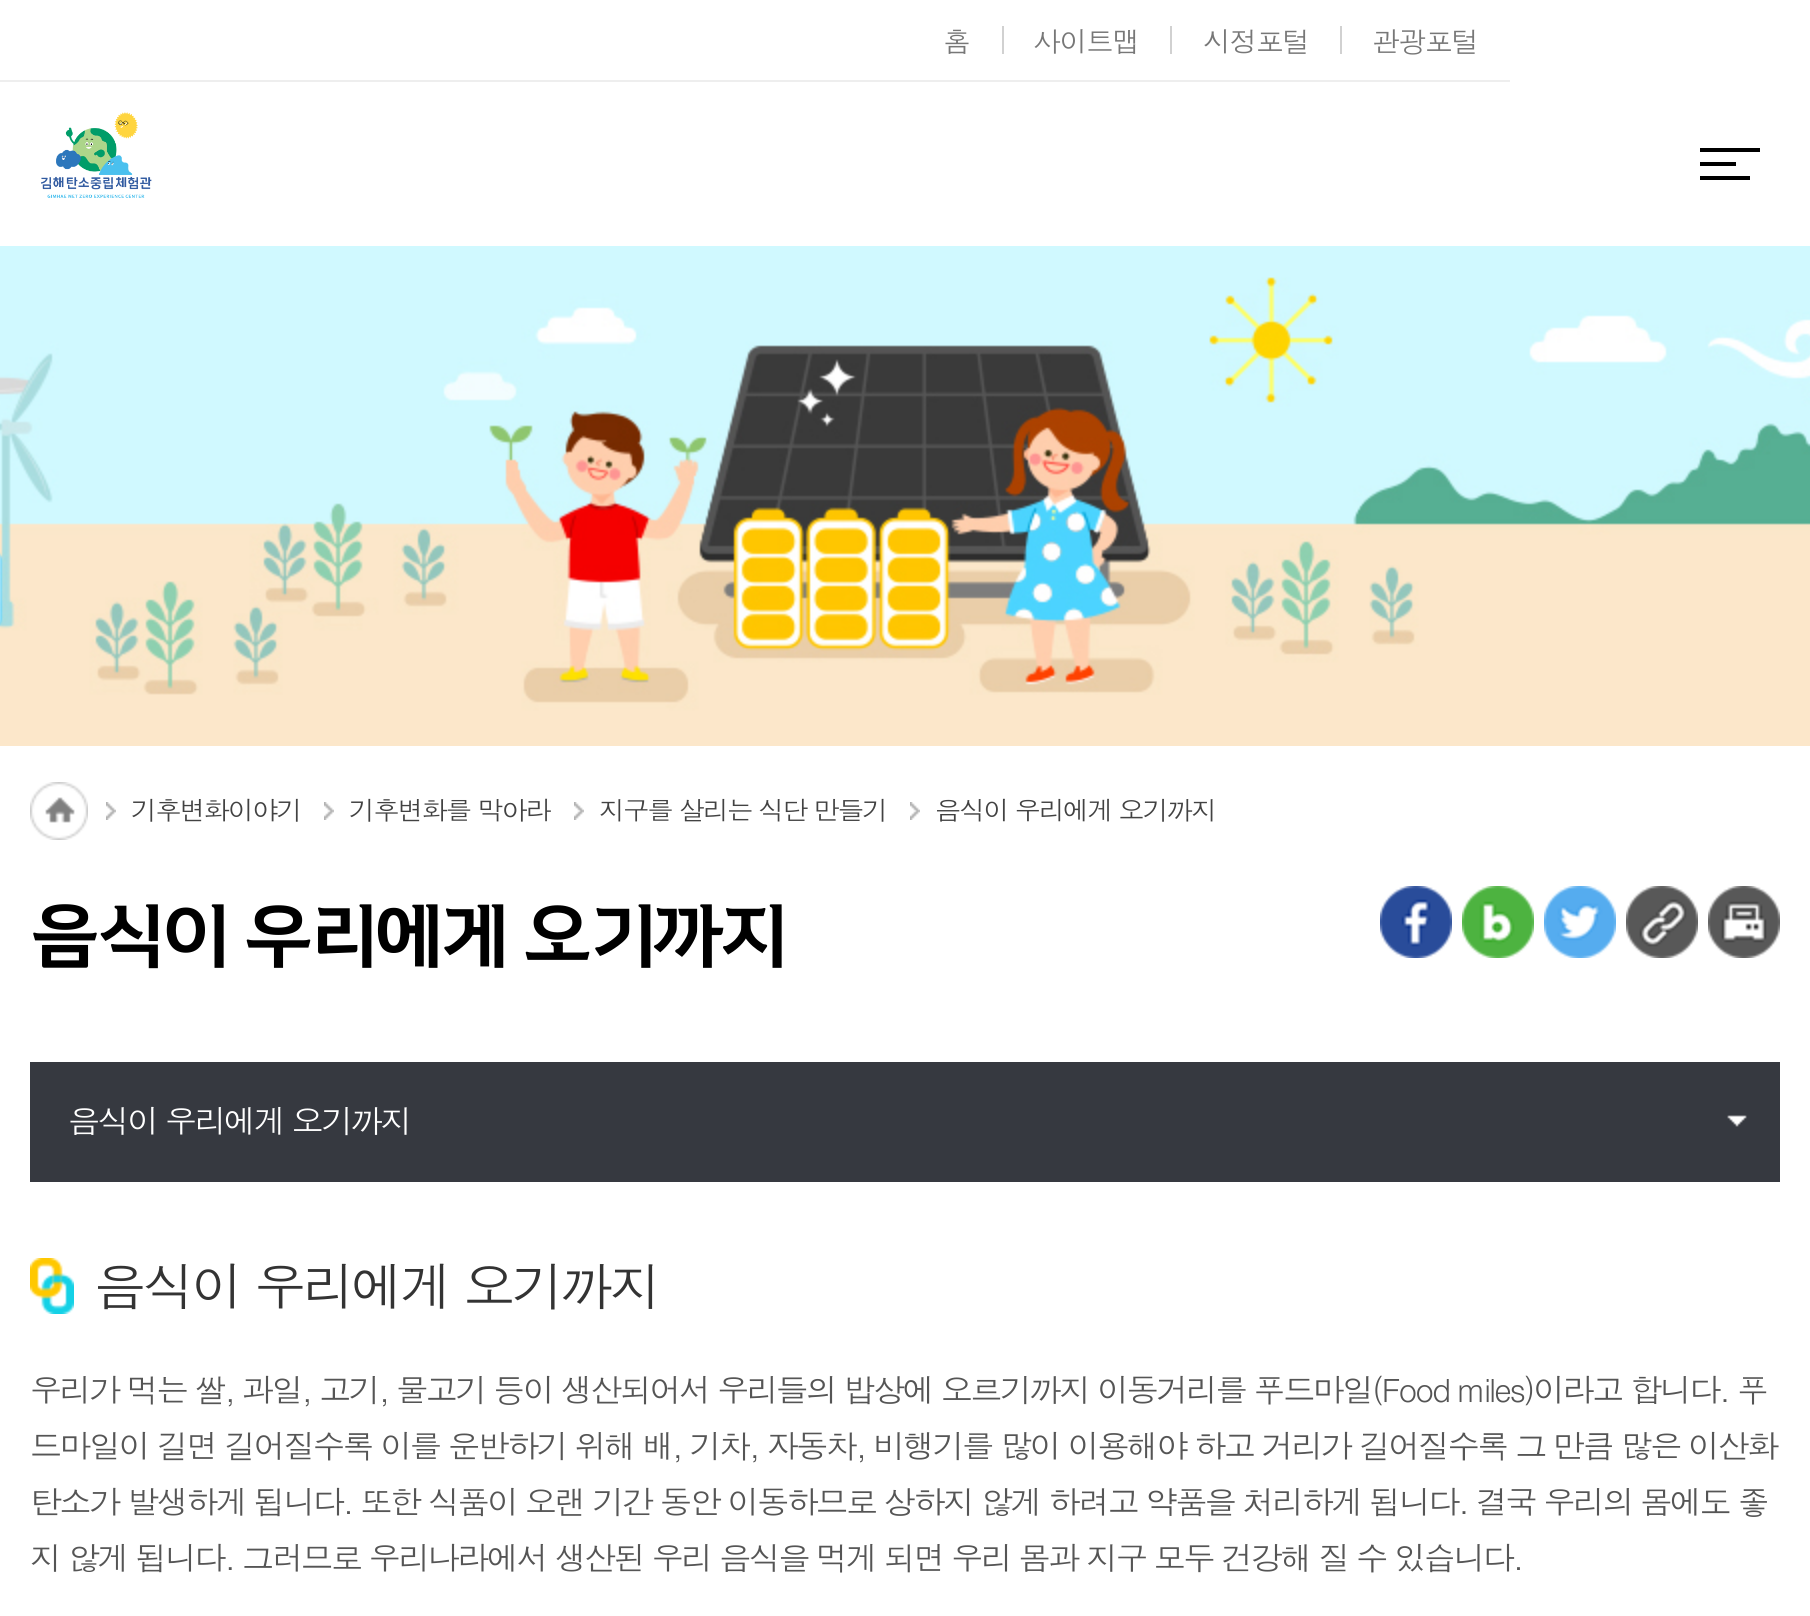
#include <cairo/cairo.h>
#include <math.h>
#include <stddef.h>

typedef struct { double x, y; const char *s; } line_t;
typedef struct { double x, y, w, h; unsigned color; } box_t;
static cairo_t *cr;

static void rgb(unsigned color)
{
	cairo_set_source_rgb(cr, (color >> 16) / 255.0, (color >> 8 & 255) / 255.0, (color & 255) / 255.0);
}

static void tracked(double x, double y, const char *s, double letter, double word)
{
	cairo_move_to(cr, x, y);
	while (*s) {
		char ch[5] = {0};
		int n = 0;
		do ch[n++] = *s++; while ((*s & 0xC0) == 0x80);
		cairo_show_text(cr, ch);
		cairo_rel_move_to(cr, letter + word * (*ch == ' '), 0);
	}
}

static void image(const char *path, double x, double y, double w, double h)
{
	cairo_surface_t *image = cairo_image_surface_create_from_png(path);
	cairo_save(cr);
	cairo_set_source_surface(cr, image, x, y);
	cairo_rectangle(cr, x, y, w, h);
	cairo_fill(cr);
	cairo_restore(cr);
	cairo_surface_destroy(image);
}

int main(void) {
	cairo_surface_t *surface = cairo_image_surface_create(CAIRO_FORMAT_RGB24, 1810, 1616);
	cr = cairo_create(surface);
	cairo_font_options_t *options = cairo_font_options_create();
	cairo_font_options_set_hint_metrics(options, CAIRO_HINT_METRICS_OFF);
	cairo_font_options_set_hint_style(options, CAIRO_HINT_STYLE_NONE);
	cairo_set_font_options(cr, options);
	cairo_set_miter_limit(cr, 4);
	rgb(0xffffff);
	cairo_paint(cr);
	{
		static const box_t items[] = {
			{0, 80, 1510, 2, 0xeeeeee},
			{1002, 26, 2, 28, 0xd1d1d1},
			{1170, 26, 2, 28, 0xd1d1d1},
			{1340, 26, 2, 28, 0xd1d1d1},
		};
		for (size_t i = 0; i < sizeof items / sizeof *items; i++) {
			rgb(items[i].color);
			cairo_rectangle(cr, items[i].x, items[i].y, items[i].w, items[i].h);
			cairo_fill(cr);
		}
	}
	image("img/1.png", 41, 112, 111, 86);
	image("img/2.png", 1700, 148, 60, 32);
	image("img/3.png", 0, 246, 1810, 500);
	image("img/4.png", 30, 782, 58, 58);
	image("img/5.png", 106, 802, 10, 18);
	image("img/5.png", 324, 802, 10, 18);
	image("img/5.png", 574, 802, 10, 18);
	image("img/5.png", 910, 802, 10, 18);
	image("img/6.png", 1380, 886, 72, 72);
	image("img/7.png", 1462, 886, 72, 72);
	image("img/8.png", 1544, 886, 72, 72);
	image("img/9.png", 1626, 886, 72, 72);
	image("img/10.png", 1708, 886, 72, 72);
	rgb(0x363940);
	cairo_rectangle(cr, 30, 1062, 1750, 120);
	cairo_fill(cr);
	image("img/11.png", 1727, 1115, 20, 12);
	image("img/12.png", 30, 1258, 44, 56);
	cairo_select_font_face(cr, "Dotum", CAIRO_FONT_SLANT_NORMAL, CAIRO_FONT_WEIGHT_NORMAL);
	cairo_set_font_size(cr, 28);
	rgb(0x777777);
	{
		static const line_t items[] = {
			{943, 52, "홈"},
			{1033, 52, "사이트맵"},
			{1203, 52, "시정포털"},
			{1372, 52, "관광포털"},
		};
		for (size_t i = 0; i < sizeof items / sizeof *items; i++) {
			tracked(items[i].x, items[i].y, items[i].s, -1.5, 0);
		}
	}
	cairo_set_font_size(cr, 26);
	rgb(0x424242);
	{
		static const line_t items[] = {
			{131, 820, "기후변화이야기"},
			{349, 820, "기후변화를 막아라"},
			{599, 820, "지구를 살리는 식단 만들기"},
			{935, 820, "음식이 우리에게 오기까지"},
		};
		for (size_t i = 0; i < sizeof items / sizeof *items; i++) {
			tracked(items[i].x, items[i].y, items[i].s, -1.75, 0);
		}
	}
	cairo_select_font_face(cr, "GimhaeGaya", CAIRO_FONT_SLANT_NORMAL, CAIRO_FONT_WEIGHT_NORMAL);
	cairo_set_font_size(cr, 70);
	rgb(0x000000);
	tracked(30, 960, "음식이 우리에게 오기까지", -4.4, 0);
	cairo_select_font_face(cr, "Dotum", CAIRO_FONT_SLANT_NORMAL, CAIRO_FONT_WEIGHT_NORMAL);
	cairo_set_font_size(cr, 32);
	rgb(0xffffff);
	tracked(68, 1133, "음식이 우리에게 오기까지", -2.4, 0);
	cairo_set_font_size(cr, 52);
	rgb(0x333333);
	tracked(94, 1306, "음식이 우리에게 오기까지", -3.25, 0);
	cairo_set_font_size(cr, 32);
	rgb(0x555555);
	{
		static const line_t items[] = {
			{30, 1402, "우리가 먹는 쌀, 과일, 고기, 물고기 등이 생산되어서 우리들의 밥상에 오르기까지 이동거리를 푸드마일(Food miles)이라고 합니다. 푸"},
			{30, 1458, "드마일이 길면 길어질수록 이를 운반하기 위해 배, 기차, 자동차, 비행기를 많이 이용해야 하고 거리가 길어질수록 그 만큼 많은 이산화"},
			{30, 1514, "탄소가 발생하게 됩니다. 또한 식품이 오랜 기간 동안 이동하므로 상하지 않게 하려고 약품을 처리하게 됩니다. 결국 우리의 몸에도 좋"},
			{30, 1570, "지 않게 됩니다. 그러므로 우리나라에서 생산된 우리 음식을 먹게 되면 우리 몸과 지구 모두 건강해 질 수 있습니다."},
		};
		for (size_t i = 0; i < sizeof items / sizeof *items; i++) {
			tracked(items[i].x, items[i].y, items[i].s, -2.4, 0);
		}
	}
	cairo_surface_write_to_png(surface, "page.png");
	cairo_font_options_destroy(options);
	cairo_destroy(cr);
	cairo_surface_destroy(surface);
	return 0;
}
